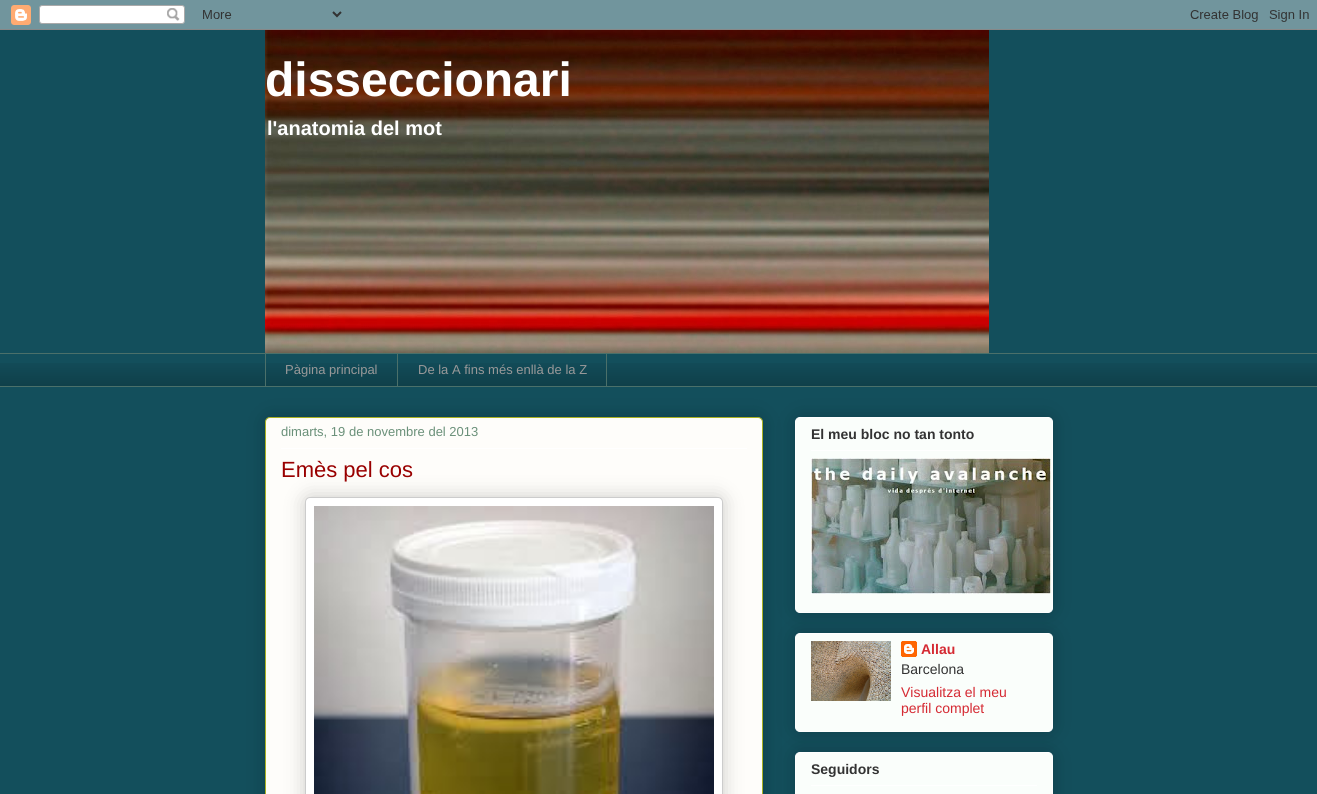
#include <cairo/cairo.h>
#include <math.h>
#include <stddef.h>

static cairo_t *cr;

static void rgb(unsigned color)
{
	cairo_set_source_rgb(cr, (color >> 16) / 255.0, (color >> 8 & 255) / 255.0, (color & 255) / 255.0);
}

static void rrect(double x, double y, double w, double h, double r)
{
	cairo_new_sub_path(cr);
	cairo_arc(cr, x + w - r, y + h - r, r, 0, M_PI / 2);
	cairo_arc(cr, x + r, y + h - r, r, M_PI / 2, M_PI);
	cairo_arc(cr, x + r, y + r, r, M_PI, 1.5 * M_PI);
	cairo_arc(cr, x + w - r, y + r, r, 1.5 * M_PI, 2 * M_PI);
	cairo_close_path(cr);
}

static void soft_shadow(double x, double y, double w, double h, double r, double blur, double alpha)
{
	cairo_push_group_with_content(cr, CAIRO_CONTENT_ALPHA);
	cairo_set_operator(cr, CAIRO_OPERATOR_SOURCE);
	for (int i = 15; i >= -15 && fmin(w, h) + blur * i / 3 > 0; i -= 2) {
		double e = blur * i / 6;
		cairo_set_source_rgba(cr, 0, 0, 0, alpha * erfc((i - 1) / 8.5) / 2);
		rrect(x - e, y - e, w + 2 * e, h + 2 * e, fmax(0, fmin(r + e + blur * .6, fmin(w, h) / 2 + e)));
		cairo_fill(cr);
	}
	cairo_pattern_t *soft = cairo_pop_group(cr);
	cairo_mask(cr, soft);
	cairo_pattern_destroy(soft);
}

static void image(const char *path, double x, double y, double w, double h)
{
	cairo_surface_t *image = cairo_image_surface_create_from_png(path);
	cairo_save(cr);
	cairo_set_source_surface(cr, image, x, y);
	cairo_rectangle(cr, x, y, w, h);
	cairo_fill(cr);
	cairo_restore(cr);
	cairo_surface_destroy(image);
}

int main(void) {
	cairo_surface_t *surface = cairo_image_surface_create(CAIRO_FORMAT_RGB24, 1317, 794);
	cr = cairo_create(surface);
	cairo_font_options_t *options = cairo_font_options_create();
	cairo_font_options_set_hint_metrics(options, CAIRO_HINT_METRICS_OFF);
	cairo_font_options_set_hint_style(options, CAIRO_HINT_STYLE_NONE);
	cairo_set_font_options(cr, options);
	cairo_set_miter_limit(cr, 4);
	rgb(0x134f5c);
	cairo_paint(cr);
	image("img/1.png", 0, 0, 1317, 30);
	image("img/2.png", 265, 30, 724, 323);
	image("img/3.png", 0, 363, 1317, 23);
	rgb(0x4b706a);
	cairo_rectangle(cr, 0, 353, 1317, 1);
	cairo_fill(cr);
	cairo_rectangle(cr, 265, 353, 1, 34);
	cairo_fill(cr);
	cairo_rectangle(cr, 397.5, 353.5, 209, 33);
	cairo_set_line_width(cr, 1);
	cairo_stroke(cr);
	cairo_rectangle(cr, 0, 386, 1317, 1);
	cairo_fill(cr);
	rgb(0x000000);
	soft_shadow(265, 417, 498, 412, 5, 10, 0.2);
	rgb(0xfefdfa);
	rrect(265.5, 417.5, 497, 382, 4.5);
	cairo_fill_preserve(cr);
	rgb(0xaab123);
	cairo_stroke(cr);
	rgb(0xffffff);
	cairo_rectangle(cr, 281, 448, 466, 1);
	cairo_fill(cr);
	rgb(0x000000);
	soft_shadow(305, 497, 418, 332, 5, 10, 0.2);
	rgb(0xffffff);
	rrect(305.5, 497.5, 417, 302, 4.5);
	cairo_fill_preserve(cr);
	rgb(0xcccccc);
	cairo_stroke(cr);
	image("img/4.png", 314, 506, 400, 288);
	rgb(0x000000);
	soft_shadow(795, 417, 258, 196, 5, 10, 0.2);
	rgb(0xfafefb);
	rrect(795.5, 417.5, 257, 195, 4.5);
	cairo_fill_preserve(cr);
	rgb(0xffffff);
	cairo_stroke(cr);
	cairo_rectangle(cr, 811, 450, 226, 1);
	cairo_fill(cr);
	image("img/5.png", 811, 458, 240, 136);
	rgb(0x000000);
	soft_shadow(795, 633, 258, 99, 5, 10, 0.2);
	rgb(0xfafefb);
	rrect(795.5, 633.5, 257, 98, 4.5);
	cairo_fill_preserve(cr);
	rgb(0xffffff);
	cairo_stroke(cr);
	image("img/6.png", 811, 641, 80, 60);
	image("img/7.png", 901, 641, 16, 16);
	rgb(0x000000);
	soft_shadow(795, 752, 258, 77, 5, 10, 0.2);
	rgb(0xfafefb);
	rrect(795.5, 752.5, 257, 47, 4.5);
	cairo_fill_preserve(cr);
	rgb(0xffffff);
	cairo_stroke(cr);
	cairo_rectangle(cr, 811, 785, 226, 1);
	cairo_fill(cr);
	cairo_select_font_face(cr, "Liberation Sans", CAIRO_FONT_SLANT_NORMAL, CAIRO_FONT_WEIGHT_BOLD);
	cairo_set_font_size(cr, 48);
	cairo_move_to(cr, 265, 96);
	cairo_show_text(cr, "disseccionari");
	cairo_set_font_size(cr, 20);
	cairo_move_to(cr, 267, 135);
	cairo_show_text(cr, "l'anatomia del mot");
	cairo_select_font_face(cr, "Liberation Sans", CAIRO_FONT_SLANT_NORMAL, CAIRO_FONT_WEIGHT_NORMAL);
	cairo_set_font_size(cr, 13);
	rgb(0x999999);
	cairo_move_to(cr, 285, 374);
	cairo_show_text(cr, "Pàgina principal");
	cairo_move_to(cr, 418, 374);
	cairo_show_text(cr, "De la A fins més enllà de la Z");
	rgb(0x6a9079);
	cairo_move_to(cr, 281, 436);
	cairo_show_text(cr, "dimarts, 19 de novembre del 2013");
	cairo_set_font_size(cr, 22);
	rgb(0x990000);
	cairo_move_to(cr, 281, 477);
	cairo_show_text(cr, "Emès pel cos");
	cairo_select_font_face(cr, "Liberation Sans", CAIRO_FONT_SLANT_NORMAL, CAIRO_FONT_WEIGHT_BOLD);
	cairo_set_font_size(cr, 14);
	rgb(0x333333);
	cairo_move_to(cr, 811, 439);
	cairo_show_text(cr, "El meu bloc no tan tonto");
	rgb(0xd52a33);
	cairo_move_to(cr, 921, 654);
	cairo_show_text(cr, "Allau");
	cairo_select_font_face(cr, "Liberation Sans", CAIRO_FONT_SLANT_NORMAL, CAIRO_FONT_WEIGHT_NORMAL);
	rgb(0x333333);
	cairo_move_to(cr, 901, 674);
	cairo_show_text(cr, "Barcelona");
	rgb(0xd52a33);
	cairo_move_to(cr, 901, 697);
	cairo_show_text(cr, "Visualitza el meu");
	cairo_move_to(cr, 901, 713);
	cairo_show_text(cr, "perfil complet");
	cairo_select_font_face(cr, "Liberation Sans", CAIRO_FONT_SLANT_NORMAL, CAIRO_FONT_WEIGHT_BOLD);
	rgb(0x333333);
	cairo_move_to(cr, 811, 774);
	cairo_show_text(cr, "Seguidors");
	cairo_surface_write_to_png(surface, "page.png");
	cairo_font_options_destroy(options);
	cairo_destroy(cr);
	cairo_surface_destroy(surface);
	return 0;
}
